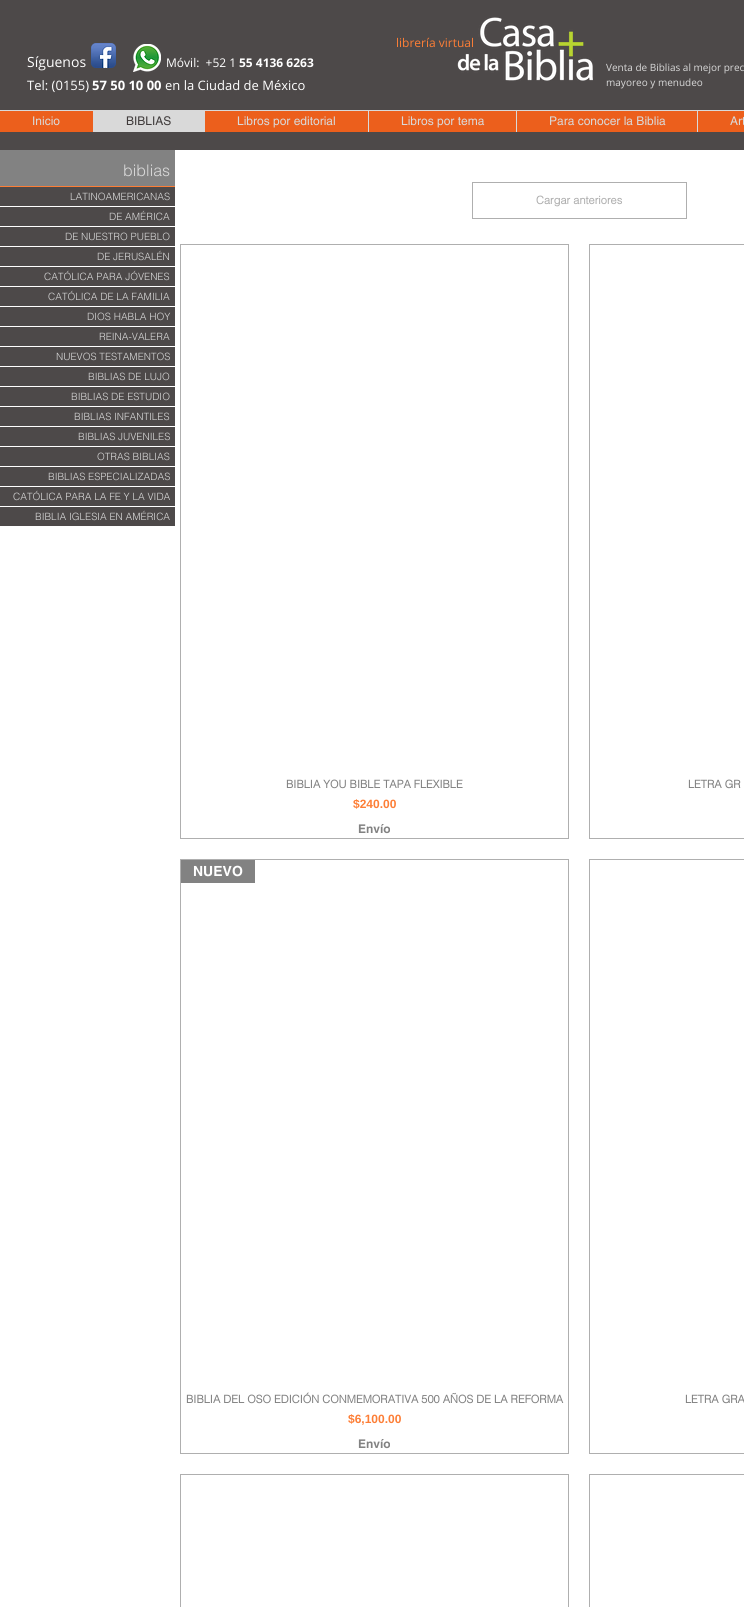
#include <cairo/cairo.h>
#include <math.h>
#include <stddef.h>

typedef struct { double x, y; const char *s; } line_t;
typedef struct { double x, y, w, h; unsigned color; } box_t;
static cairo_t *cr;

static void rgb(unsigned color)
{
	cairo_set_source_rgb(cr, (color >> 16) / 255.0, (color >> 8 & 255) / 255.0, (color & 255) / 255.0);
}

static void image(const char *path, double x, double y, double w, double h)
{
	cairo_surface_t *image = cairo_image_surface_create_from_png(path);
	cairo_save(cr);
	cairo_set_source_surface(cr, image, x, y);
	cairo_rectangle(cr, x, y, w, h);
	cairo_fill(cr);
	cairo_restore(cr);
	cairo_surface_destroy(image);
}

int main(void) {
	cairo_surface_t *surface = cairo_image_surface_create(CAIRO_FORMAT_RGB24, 744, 1607);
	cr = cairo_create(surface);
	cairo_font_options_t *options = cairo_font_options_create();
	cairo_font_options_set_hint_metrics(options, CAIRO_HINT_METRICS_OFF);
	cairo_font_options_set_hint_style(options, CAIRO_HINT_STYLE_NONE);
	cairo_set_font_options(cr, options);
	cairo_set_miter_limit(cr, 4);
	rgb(0xffffff);
	cairo_paint(cr);
	rgb(0x4d4949);
	cairo_rectangle(cr, 0, 0, 744, 150);
	cairo_fill(cr);
	image("img/1.png", 91, 43, 25, 25);
	image("img/2.png", 133, 44, 28, 28);
	{
		static const box_t items[] = {
			{0, 110, 744, 1, 0xd9d9d9},
			{0, 111, 744, 21, 0xec5f1c},
			{93, 111, 112, 21, 0xd9d9d9},
			{368, 111, 1, 21, 0xd9d9d9},
			{516, 111, 1, 21, 0xd9d9d9},
			{697, 111, 1, 21, 0xd9d9d9},
			{0, 150, 175, 36, 0x828282},
			{0, 186, 175, 1, 0xfd7e36},
			{0, 187, 175, 19, 0x4d4949},
		};
		for (size_t i = 0; i < sizeof items / sizeof *items; i++) {
			rgb(items[i].color);
			cairo_rectangle(cr, items[i].x, items[i].y, items[i].w, items[i].h);
			cairo_fill(cr);
		}
	}
	cairo_rectangle(cr, 472.5, 182.5, 214, 36);
	rgb(0xafafaf);
	cairo_set_line_width(cr, 1);
	cairo_stroke(cr);
	cairo_rectangle(cr, 180.5, 244.5, 388, 594);
	cairo_stroke(cr);
	cairo_rectangle(cr, 589.5, 244.5, 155, 594);
	cairo_stroke(cr);
	cairo_rectangle(cr, 180.5, 859.5, 388, 594);
	cairo_stroke(cr);
	rgb(0x828282);
	cairo_rectangle(cr, 181, 860, 74, 23);
	cairo_fill(cr);
	cairo_rectangle(cr, 589.5, 859.5, 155, 594);
	rgb(0xafafaf);
	cairo_stroke(cr);
	cairo_rectangle(cr, 180.5, 1474.5, 388, 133);
	cairo_stroke(cr);
	cairo_rectangle(cr, 589.5, 1474.5, 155, 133);
	cairo_stroke(cr);
	{
		static const box_t items[] = {
			{0, 207, 175, 19, 0x4d4949},
			{0, 227, 175, 19, 0x4d4949},
			{0, 247, 175, 19, 0x4d4949},
			{0, 267, 175, 19, 0x4d4949},
			{0, 287, 175, 19, 0x4d4949},
			{0, 307, 175, 19, 0x4d4949},
			{0, 327, 175, 19, 0x4d4949},
			{0, 347, 175, 19, 0x4d4949},
			{0, 367, 175, 19, 0x4d4949},
			{0, 387, 175, 19, 0x4d4949},
			{0, 407, 175, 19, 0x4d4949},
			{0, 427, 175, 19, 0x4d4949},
			{0, 447, 175, 19, 0x4d4949},
			{0, 467, 175, 19, 0x4d4949},
			{0, 487, 175, 19, 0x4d4949},
			{0, 507, 175, 19, 0x4d4949},
		};
		for (size_t i = 0; i < sizeof items / sizeof *items; i++) {
			rgb(items[i].color);
			cairo_rectangle(cr, items[i].x, items[i].y, items[i].w, items[i].h);
			cairo_fill(cr);
		}
	}
	cairo_select_font_face(cr, "Open Sans", CAIRO_FONT_SLANT_NORMAL, CAIRO_FONT_WEIGHT_NORMAL);
	cairo_set_font_size(cr, 14);
	rgb(0xffffff);
	cairo_move_to(cr, 27, 67);
	cairo_show_text(cr, "Síguenos");
	cairo_set_font_size(cr, 12);
	cairo_move_to(cr, 166, 67);
	cairo_show_text(cr, "Móvil:  +52 1");
	cairo_select_font_face(cr, "Open Sans", CAIRO_FONT_SLANT_NORMAL, CAIRO_FONT_WEIGHT_BOLD);
	cairo_move_to(cr, 239, 67);
	cairo_show_text(cr, "55 4136 6263");
	cairo_select_font_face(cr, "Open Sans", CAIRO_FONT_SLANT_NORMAL, CAIRO_FONT_WEIGHT_NORMAL);
	rgb(0xfd7e36);
	cairo_move_to(cr, 396, 47);
	cairo_show_text(cr, "librería virtual");
	image("img/3.png", 457, 17, 136, 64);
	cairo_set_font_size(cr, 10);
	rgb(0xd9d9d9);
	cairo_move_to(cr, 606, 71);
	cairo_show_text(cr, "Venta de Biblias al mejor prec");
	cairo_move_to(cr, 606, 86);
	cairo_show_text(cr, "mayoreo y menudeo");
	cairo_set_font_size(cr, 13);
	rgb(0xffffff);
	cairo_move_to(cr, 27, 90);
	cairo_show_text(cr, "Tel: (0155)");
	cairo_select_font_face(cr, "Open Sans", CAIRO_FONT_SLANT_NORMAL, CAIRO_FONT_WEIGHT_BOLD);
	cairo_move_to(cr, 92, 90);
	cairo_show_text(cr, "57 50 10 00");
	cairo_select_font_face(cr, "Open Sans", CAIRO_FONT_SLANT_NORMAL, CAIRO_FONT_WEIGHT_NORMAL);
	cairo_move_to(cr, 165, 90);
	cairo_show_text(cr, "en la Ciudad de México");
	cairo_select_font_face(cr, "helvetica", CAIRO_FONT_SLANT_NORMAL, CAIRO_FONT_WEIGHT_NORMAL);
	cairo_set_font_size(cr, 12);
	rgb(0xd9d9d9);
	cairo_move_to(cr, 32, 125);
	cairo_show_text(cr, "Inicio");
	rgb(0x403b3b);
	cairo_move_to(cr, 126, 125);
	cairo_show_text(cr, "BIBLIAS");
	rgb(0xd9d9d9);
	{
		static const line_t items[] = {
			{237, 125, "Libros por editorial"},
			{401, 125, "Libros por tema"},
			{549, 125, "Para conocer la Biblia"},
			{730, 125, "Art"},
		};
		for (size_t i = 0; i < sizeof items / sizeof *items; i++) {
			cairo_move_to(cr, items[i].x, items[i].y);
			cairo_show_text(cr, items[i].s);
		}
	}
	cairo_select_font_face(cr, "helvetica Light", CAIRO_FONT_SLANT_NORMAL, CAIRO_FONT_WEIGHT_NORMAL);
	cairo_set_font_size(cr, 16);
	cairo_move_to(cr, 123, 176);
	cairo_show_text(cr, "biblias");
	cairo_set_font_size(cr, 10);
	cairo_move_to(cr, 70, 200);
	cairo_show_text(cr, "LATINOAMERICANAS");
	cairo_select_font_face(cr, "helvetica", CAIRO_FONT_SLANT_NORMAL, CAIRO_FONT_WEIGHT_BOLD);
	cairo_set_font_size(cr, 11);
	rgb(0xafafaf);
	cairo_move_to(cr, 536, 204);
	cairo_show_text(cr, "Cargar anteriores");
	rgb(0x828282);
	cairo_move_to(cr, 286, 788);
	cairo_show_text(cr, "BIBLIA YOU BIBLE TAPA FLEXIBLE");
	cairo_select_font_face(cr, "Liberation Sans", CAIRO_FONT_SLANT_NORMAL, CAIRO_FONT_WEIGHT_BOLD);
	cairo_set_font_size(cr, 12);
	rgb(0xfd7e36);
	cairo_move_to(cr, 353, 808);
	cairo_show_text(cr, "$240.00");
	cairo_select_font_face(cr, "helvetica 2", CAIRO_FONT_SLANT_NORMAL, CAIRO_FONT_WEIGHT_BOLD);
	rgb(0x828282);
	cairo_move_to(cr, 358, 833);
	cairo_show_text(cr, "Envío");
	cairo_select_font_face(cr, "helvetica", CAIRO_FONT_SLANT_NORMAL, CAIRO_FONT_WEIGHT_BOLD);
	cairo_set_font_size(cr, 11);
	cairo_move_to(cr, 688, 788);
	cairo_show_text(cr, "LETRA GR");
	cairo_select_font_face(cr, "helvetica 2", CAIRO_FONT_SLANT_NORMAL, CAIRO_FONT_WEIGHT_BOLD);
	cairo_set_font_size(cr, 14);
	rgb(0xffffff);
	cairo_move_to(cr, 193, 876);
	cairo_show_text(cr, "NUEVO");
	cairo_select_font_face(cr, "helvetica", CAIRO_FONT_SLANT_NORMAL, CAIRO_FONT_WEIGHT_BOLD);
	cairo_set_font_size(cr, 11);
	rgb(0x828282);
	cairo_move_to(cr, 186, 1403);
	cairo_show_text(cr, "BIBLIA DEL OSO EDICIÓN CONMEMORATIVA 500 AÑOS DE LA REFORMA");
	cairo_select_font_face(cr, "Liberation Sans", CAIRO_FONT_SLANT_NORMAL, CAIRO_FONT_WEIGHT_BOLD);
	cairo_set_font_size(cr, 12);
	rgb(0xfd7e36);
	cairo_move_to(cr, 348, 1423);
	cairo_show_text(cr, "$6,100.00");
	cairo_select_font_face(cr, "helvetica 2", CAIRO_FONT_SLANT_NORMAL, CAIRO_FONT_WEIGHT_BOLD);
	rgb(0x828282);
	cairo_move_to(cr, 358, 1448);
	cairo_show_text(cr, "Envío");
	cairo_select_font_face(cr, "helvetica", CAIRO_FONT_SLANT_NORMAL, CAIRO_FONT_WEIGHT_BOLD);
	cairo_set_font_size(cr, 11);
	cairo_move_to(cr, 685, 1403);
	cairo_show_text(cr, "LETRA GRA");
	cairo_select_font_face(cr, "helvetica Light", CAIRO_FONT_SLANT_NORMAL, CAIRO_FONT_WEIGHT_NORMAL);
	cairo_set_font_size(cr, 10);
	rgb(0xd9d9d9);
	{
		static const line_t items[] = {
			{109, 220, "DE AMÉRICA"},
			{65, 240, "DE NUESTRO PUEBLO"},
			{97, 260, "DE JERUSALÉN"},
			{44, 280, "CATÓLICA PARA JÓVENES"},
			{48, 300, "CATÓLICA DE LA FAMILIA"},
			{87, 320, "DIOS HABLA HOY"},
			{99, 340, "REINA-VALERA"},
			{56, 360, "NUEVOS TESTAMENTOS"},
			{88, 380, "BIBLIAS DE LUJO"},
			{71, 400, "BIBLIAS DE ESTUDIO"},
			{74, 420, "BIBLIAS INFANTILES"},
			{78, 440, "BIBLIAS JUVENILES"},
			{97, 460, "OTRAS BIBLIAS"},
			{48, 480, "BIBLIAS ESPECIALIZADAS"},
			{13, 500, "CATÓLICA PARA LA FE Y LA VIDA"},
			{35, 520, "BIBLIA IGLESIA EN AMÉRICA"},
		};
		for (size_t i = 0; i < sizeof items / sizeof *items; i++) {
			cairo_move_to(cr, items[i].x, items[i].y);
			cairo_show_text(cr, items[i].s);
		}
	}
	cairo_surface_write_to_png(surface, "page.png");
	cairo_font_options_destroy(options);
	cairo_destroy(cr);
	cairo_surface_destroy(surface);
	return 0;
}
